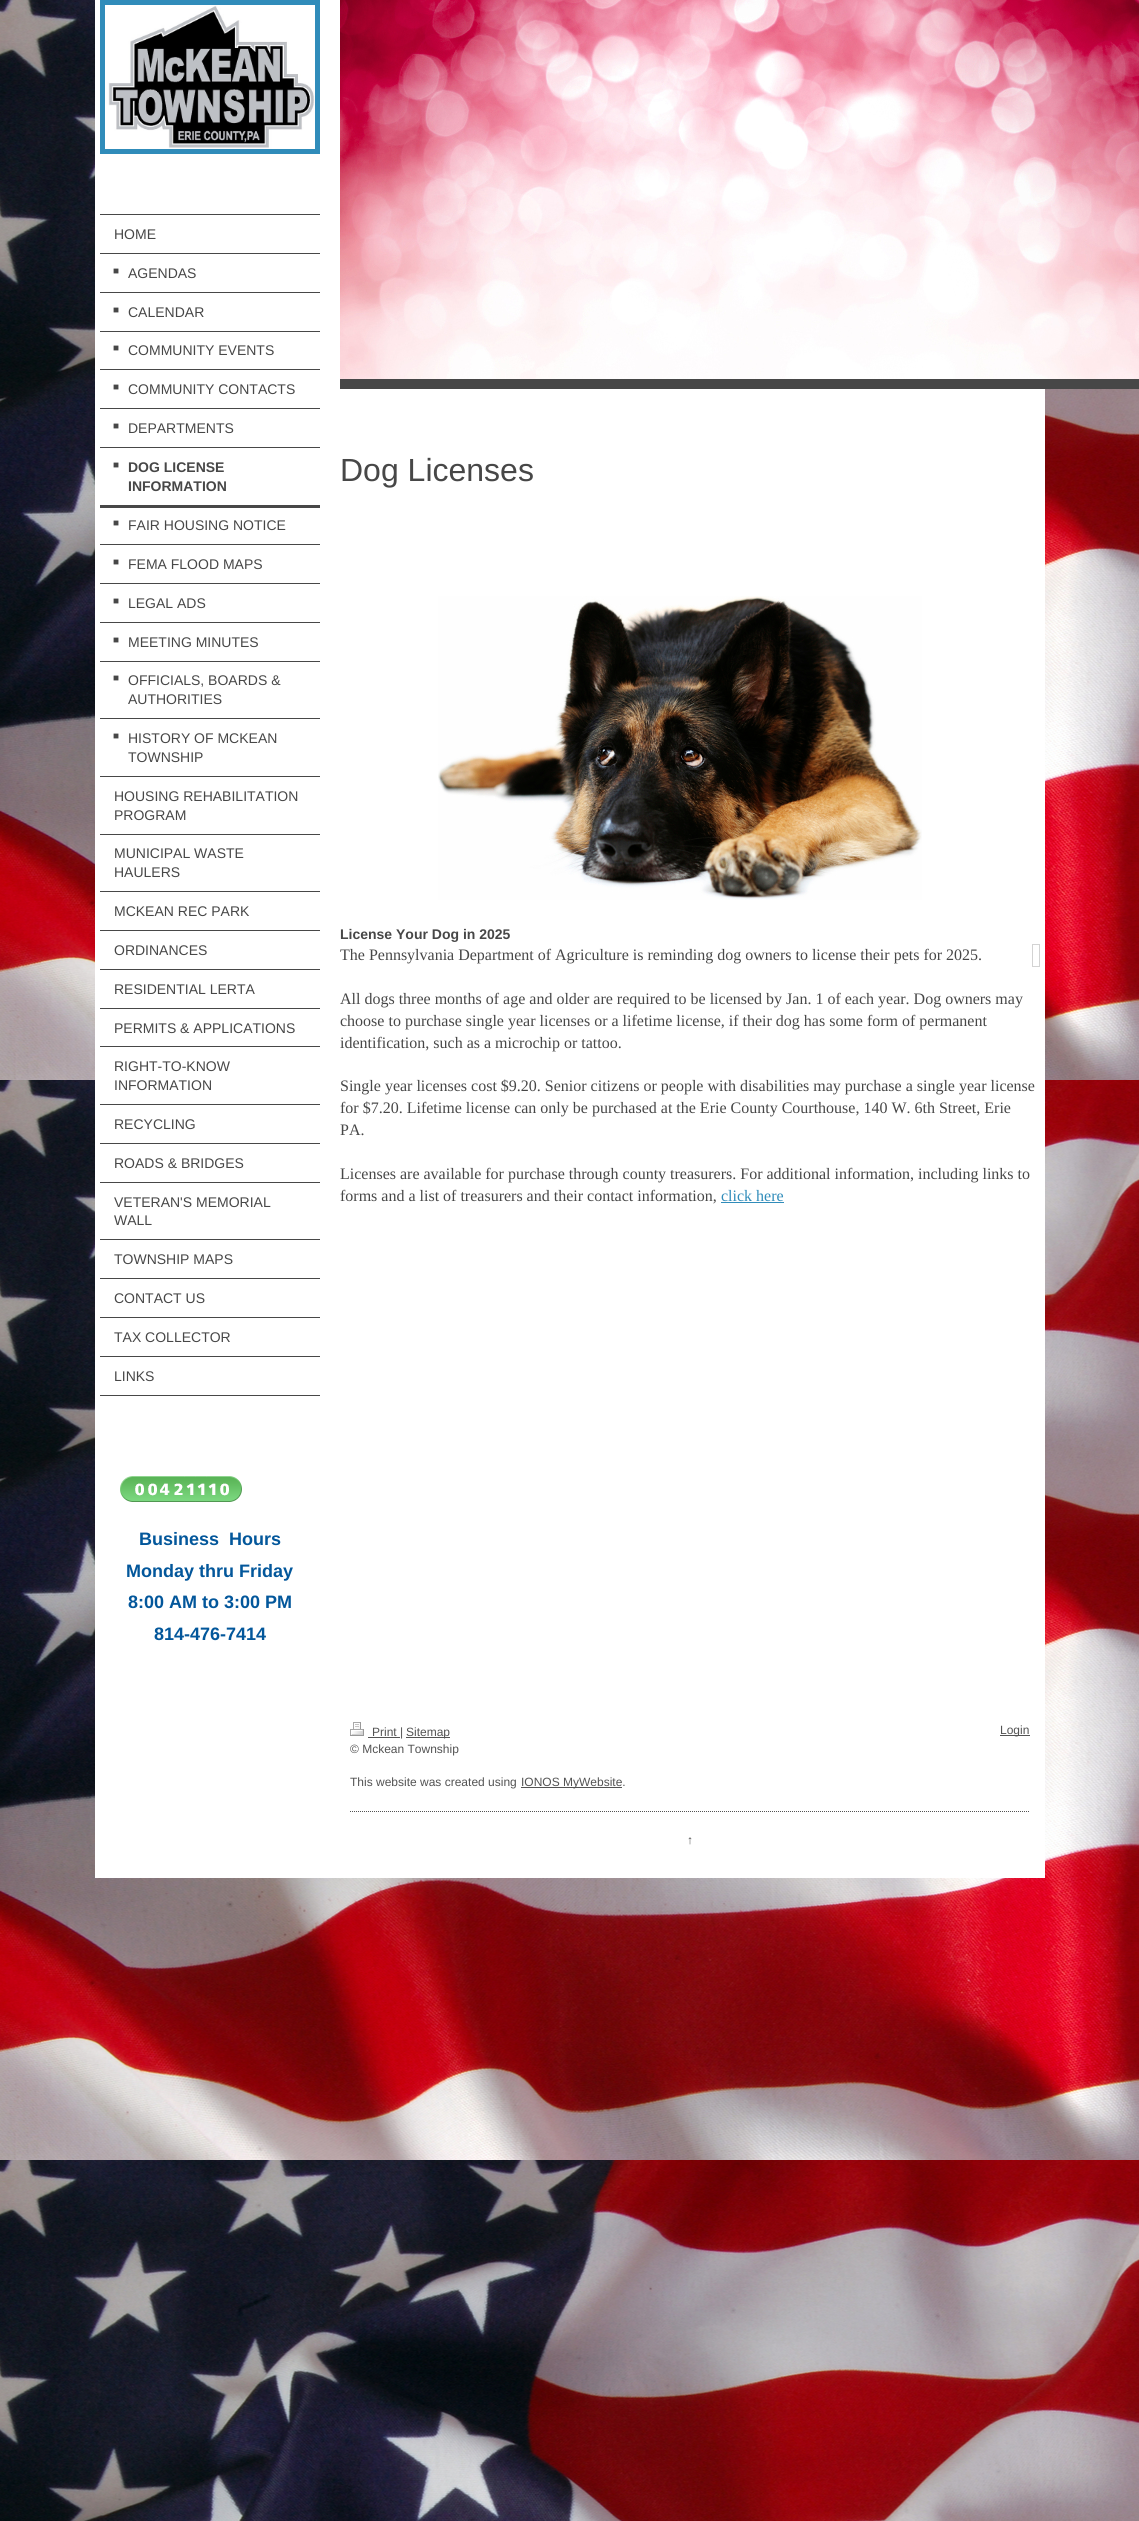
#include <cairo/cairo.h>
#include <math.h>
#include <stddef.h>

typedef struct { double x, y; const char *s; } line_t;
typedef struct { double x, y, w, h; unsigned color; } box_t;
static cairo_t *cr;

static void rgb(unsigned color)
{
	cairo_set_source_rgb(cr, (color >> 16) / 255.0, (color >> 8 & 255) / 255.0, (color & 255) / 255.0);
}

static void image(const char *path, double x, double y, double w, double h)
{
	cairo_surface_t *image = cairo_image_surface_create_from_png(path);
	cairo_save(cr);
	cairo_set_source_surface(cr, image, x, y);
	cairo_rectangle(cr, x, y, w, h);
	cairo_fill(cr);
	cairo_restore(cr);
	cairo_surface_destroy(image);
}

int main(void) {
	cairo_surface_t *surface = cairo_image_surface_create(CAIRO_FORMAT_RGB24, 1139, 2521);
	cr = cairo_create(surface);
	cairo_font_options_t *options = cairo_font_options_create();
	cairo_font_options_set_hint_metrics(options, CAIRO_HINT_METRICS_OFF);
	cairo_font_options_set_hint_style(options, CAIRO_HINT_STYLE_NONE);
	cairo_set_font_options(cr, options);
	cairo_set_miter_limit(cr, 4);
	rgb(0xffffff);
	cairo_paint(cr);
	image("img/1.png", 0, 0, 1139, 2521);
	rgb(0xffffff);
	cairo_rectangle(cr, 95, 0, 950, 1878);
	cairo_fill(cr);
	rgb(0x308cba);
	cairo_rectangle(cr, 100, 0, 220, 154);
	cairo_fill(cr);
	image("img/2.png", 105, 5, 210, 144);
	{
		static const box_t items[] = {
			{100, 214, 220, 1, 0x474747},
			{100, 253, 220, 1, 0x474747},
			{100, 776, 220, 1, 0x474747},
			{100, 292, 220, 1, 0x474747},
			{100, 331, 220, 1, 0x474747},
			{100, 369, 220, 1, 0x474747},
			{100, 408, 220, 1, 0x474747},
			{100, 447, 220, 1, 0x474747},
			{100, 505, 220, 3, 0x474747},
			{100, 544, 220, 1, 0x474747},
			{100, 583, 220, 1, 0x474747},
			{100, 622, 220, 1, 0x474747},
			{100, 661, 220, 1, 0x474747},
			{100, 718, 220, 1, 0x474747},
			{100, 834, 220, 1, 0x474747},
			{100, 891, 220, 1, 0x474747},
			{100, 930, 220, 1, 0x474747},
			{100, 969, 220, 1, 0x474747},
			{100, 1008, 220, 1, 0x474747},
			{100, 1046, 220, 1, 0x474747},
			{100, 1104, 220, 1, 0x474747},
			{100, 1143, 220, 1, 0x474747},
			{100, 1182, 220, 1, 0x474747},
			{100, 1239, 220, 1, 0x474747},
			{100, 1278, 220, 1, 0x474747},
			{100, 1317, 220, 1, 0x474747},
			{100, 1356, 220, 1, 0x474747},
			{100, 1395, 220, 1, 0x474747},
		};
		for (size_t i = 0; i < sizeof items / sizeof *items; i++) {
			rgb(items[i].color);
			cairo_rectangle(cr, items[i].x, items[i].y, items[i].w, items[i].h);
			cairo_fill(cr);
		}
	}
	image("img/3.png", 120, 1476, 12, 26);
	image("img/4.png", 132, 1476, 13, 26);
	image("img/4.png", 145, 1476, 13, 26);
	image("img/5.png", 158, 1476, 13, 26);
	image("img/6.png", 171, 1476, 13, 26);
	image("img/7.png", 184, 1476, 11, 26);
	image("img/7.png", 195, 1476, 11, 26);
	image("img/7.png", 206, 1476, 11, 26);
	image("img/4.png", 217, 1476, 13, 26);
	image("img/8.png", 230, 1476, 12, 26);
	cairo_rectangle(cr, 340, 379, 799, 10);
	cairo_fill(cr);
	image("img/9.png", 340, 0, 799, 379);
	image("img/10.png", 438, 596, 484, 304);
	{
		static const box_t items[] = {
			{721, 1202, 63, 1, 0x308cba},
			{1032, 944, 8, 1, 0xd3d3d3},
			{1039, 944, 1, 23, 0xd3d3d3},
			{1032, 966, 8, 1, 0xd3d3d3},
			{1032, 944, 1, 23, 0xd3d3d3},
		};
		for (size_t i = 0; i < sizeof items / sizeof *items; i++) {
			rgb(items[i].color);
			cairo_rectangle(cr, items[i].x, items[i].y, items[i].w, items[i].h);
			cairo_fill(cr);
		}
	}
	image("img/11.png", 350, 1722, 14, 14);
	{
		static const box_t items[] = {
			{368, 1737, 32, 1, 0x535353},
			{406, 1737, 44, 1, 0x535353},
			{521, 1787, 101, 1, 0x535353},
			{1000, 1735, 30, 1, 0x535353},
		};
		for (size_t i = 0; i < sizeof items / sizeof *items; i++) {
			rgb(items[i].color);
			cairo_rectangle(cr, items[i].x, items[i].y, items[i].w, items[i].h);
			cairo_fill(cr);
		}
	}
	cairo_new_path(cr);
	cairo_move_to(cr, 350, 1811.5);
	cairo_line_to(cr, 1030, 1811.5);
	cairo_set_line_width(cr, 1);
	cairo_set_dash(cr, (double[]){1, 1}, 2, 0);
	cairo_stroke(cr);
	cairo_select_font_face(cr, "Liberation Sans", CAIRO_FONT_SLANT_NORMAL, CAIRO_FONT_WEIGHT_NORMAL);
	cairo_set_font_size(cr, 14);
	rgb(0x474747);
	cairo_move_to(cr, 114, 239);
	cairo_show_text(cr, "HOME");
	cairo_set_font_size(cr, 10);
	cairo_move_to(cr, 113, 274);
	cairo_show_text(cr, "■");
	cairo_set_font_size(cr, 14);
	cairo_move_to(cr, 128, 278);
	cairo_show_text(cr, "AGENDAS");
	cairo_set_font_size(cr, 10);
	cairo_move_to(cr, 113, 313);
	cairo_show_text(cr, "■");
	cairo_set_font_size(cr, 14);
	cairo_move_to(cr, 128, 317);
	cairo_show_text(cr, "CALENDAR");
	cairo_set_font_size(cr, 10);
	cairo_move_to(cr, 113, 351);
	cairo_show_text(cr, "■");
	cairo_set_font_size(cr, 14);
	cairo_move_to(cr, 128, 355);
	cairo_show_text(cr, "COMMUNITY EVENTS");
	cairo_set_font_size(cr, 10);
	cairo_move_to(cr, 113, 390);
	cairo_show_text(cr, "■");
	cairo_set_font_size(cr, 14);
	cairo_move_to(cr, 128, 394);
	cairo_show_text(cr, "COMMUNITY CONTACTS");
	cairo_set_font_size(cr, 10);
	cairo_move_to(cr, 113, 429);
	cairo_show_text(cr, "■");
	cairo_set_font_size(cr, 14);
	cairo_move_to(cr, 128, 433);
	cairo_show_text(cr, "DEPARTMENTS");
	cairo_select_font_face(cr, "Liberation Sans", CAIRO_FONT_SLANT_NORMAL, CAIRO_FONT_WEIGHT_BOLD);
	cairo_set_font_size(cr, 10);
	cairo_move_to(cr, 113, 468);
	cairo_show_text(cr, "■");
	cairo_set_font_size(cr, 14);
	cairo_move_to(cr, 128, 472);
	cairo_show_text(cr, "DOG LICENSE");
	cairo_move_to(cr, 128, 491);
	cairo_show_text(cr, "INFORMATION");
	cairo_select_font_face(cr, "Liberation Sans", CAIRO_FONT_SLANT_NORMAL, CAIRO_FONT_WEIGHT_NORMAL);
	cairo_set_font_size(cr, 10);
	cairo_move_to(cr, 113, 526);
	cairo_show_text(cr, "■");
	cairo_set_font_size(cr, 14);
	cairo_move_to(cr, 128, 530);
	cairo_show_text(cr, "FAIR HOUSING NOTICE");
	cairo_set_font_size(cr, 10);
	cairo_move_to(cr, 113, 565);
	cairo_show_text(cr, "■");
	cairo_set_font_size(cr, 14);
	cairo_move_to(cr, 128, 569);
	cairo_show_text(cr, "FEMA FLOOD MAPS");
	cairo_set_font_size(cr, 10);
	cairo_move_to(cr, 113, 604);
	cairo_show_text(cr, "■");
	cairo_set_font_size(cr, 14);
	cairo_move_to(cr, 128, 608);
	cairo_show_text(cr, "LEGAL ADS");
	cairo_set_font_size(cr, 10);
	cairo_move_to(cr, 113, 643);
	cairo_show_text(cr, "■");
	cairo_set_font_size(cr, 14);
	cairo_move_to(cr, 128, 647);
	cairo_show_text(cr, "MEETING MINUTES");
	cairo_set_font_size(cr, 10);
	cairo_move_to(cr, 113, 681);
	cairo_show_text(cr, "■");
	cairo_set_font_size(cr, 14);
	cairo_move_to(cr, 128, 685);
	cairo_show_text(cr, "OFFICIALS, BOARDS &");
	cairo_move_to(cr, 128, 704);
	cairo_show_text(cr, "AUTHORITIES");
	cairo_set_font_size(cr, 10);
	cairo_move_to(cr, 113, 739);
	cairo_show_text(cr, "■");
	cairo_set_font_size(cr, 14);
	{
		static const line_t items[] = {
			{128, 743, "HISTORY OF MCKEAN"},
			{128, 762, "TOWNSHIP"},
			{114, 801, "HOUSING REHABILITATION"},
			{114, 820, "PROGRAM"},
			{114, 858, "MUNICIPAL WASTE"},
			{114, 877, "HAULERS"},
			{114, 916, "MCKEAN REC PARK"},
			{114, 955, "ORDINANCES"},
			{114, 994, "RESIDENTIAL LERTA"},
			{114, 1033, "PERMITS & APPLICATIONS"},
			{114, 1071, "RIGHT-TO-KNOW"},
			{114, 1090, "INFORMATION"},
			{114, 1129, "RECYCLING"},
			{114, 1168, "ROADS & BRIDGES"},
			{114, 1207, "VETERAN'S MEMORIAL"},
			{114, 1225, "WALL"},
			{114, 1264, "TOWNSHIP MAPS"},
			{114, 1303, "CONTACT US"},
			{114, 1342, "TAX COLLECTOR"},
			{114, 1381, "LINKS"},
		};
		for (size_t i = 0; i < sizeof items / sizeof *items; i++) {
			cairo_move_to(cr, items[i].x, items[i].y);
			cairo_show_text(cr, items[i].s);
		}
	}
	cairo_select_font_face(cr, "Liberation Sans", CAIRO_FONT_SLANT_NORMAL, CAIRO_FONT_WEIGHT_BOLD);
	cairo_set_font_size(cr, 18);
	rgb(0x03579b);
	{
		static const line_t items[] = {
			{139, 1545, "Business  Hours"},
			{126, 1577, "Monday thru Friday"},
			{128, 1608, "8:00 AM to 3:00 PM"},
			{154, 1640, "814-476-7414"},
		};
		for (size_t i = 0; i < sizeof items / sizeof *items; i++) {
			cairo_move_to(cr, items[i].x, items[i].y);
			cairo_show_text(cr, items[i].s);
		}
	}
	cairo_select_font_face(cr, "Liberation Sans", CAIRO_FONT_SLANT_NORMAL, CAIRO_FONT_WEIGHT_NORMAL);
	cairo_set_font_size(cr, 32);
	rgb(0x474747);
	cairo_move_to(cr, 340, 481);
	cairo_show_text(cr, "Dog Licenses");
	cairo_select_font_face(cr, "Liberation Sans", CAIRO_FONT_SLANT_NORMAL, CAIRO_FONT_WEIGHT_BOLD);
	cairo_set_font_size(cr, 14);
	cairo_move_to(cr, 340, 939);
	cairo_show_text(cr, "License Your Dog in 2025");
	cairo_select_font_face(cr, "Liberation Serif", CAIRO_FONT_SLANT_NORMAL, CAIRO_FONT_WEIGHT_NORMAL);
	cairo_set_font_size(cr, 16);
	{
		static const line_t items[] = {
			{340, 960, "The Pennsylvania Department of Agriculture is reminding dog owners to license their pets for 2025."},
			{340, 1004, "All dogs three months of age and older are required to be licensed by Jan. 1 of each year. Dog owners may"},
			{340, 1026, "choose to purchase single year licenses or a lifetime license, if their dog has some form of permanent"},
			{340, 1048, "identification, such as a microchip or tattoo."},
			{340, 1091, "Single year licenses cost $9.20. Senior citizens or people with disabilities may purchase a single year license"},
			{340, 1113, "for $7.20. Lifetime license can only be purchased at the Erie County Courthouse, 140 W. 6th Street, Erie"},
			{340, 1135, "PA."},
			{340, 1179, "Licenses are available for purchase through county treasurers. For additional information, including links to"},
			{340, 1201, "forms and a list of treasurers and their contact information,"},
		};
		for (size_t i = 0; i < sizeof items / sizeof *items; i++) {
			cairo_move_to(cr, items[i].x, items[i].y);
			cairo_show_text(cr, items[i].s);
		}
	}
	rgb(0x308cba);
	cairo_move_to(cr, 721, 1201);
	cairo_show_text(cr, "click here");
	cairo_select_font_face(cr, "Liberation Sans", CAIRO_FONT_SLANT_NORMAL, CAIRO_FONT_WEIGHT_NORMAL);
	cairo_set_font_size(cr, 12);
	rgb(0x535353);
	{
		static const line_t items[] = {
			{372, 1736, "Print |"},
			{406, 1736, "Sitemap"},
			{350, 1753, "© Mckean Township"},
			{350, 1786, "This website was created using"},
			{521, 1786, "IONOS MyWebsite."},
			{1000, 1734, "Login"},
			{687, 1844, "↑"},
		};
		for (size_t i = 0; i < sizeof items / sizeof *items; i++) {
			cairo_move_to(cr, items[i].x, items[i].y);
			cairo_show_text(cr, items[i].s);
		}
	}
	cairo_surface_write_to_png(surface, "page.png");
	cairo_font_options_destroy(options);
	cairo_destroy(cr);
	cairo_surface_destroy(surface);
	return 0;
}
